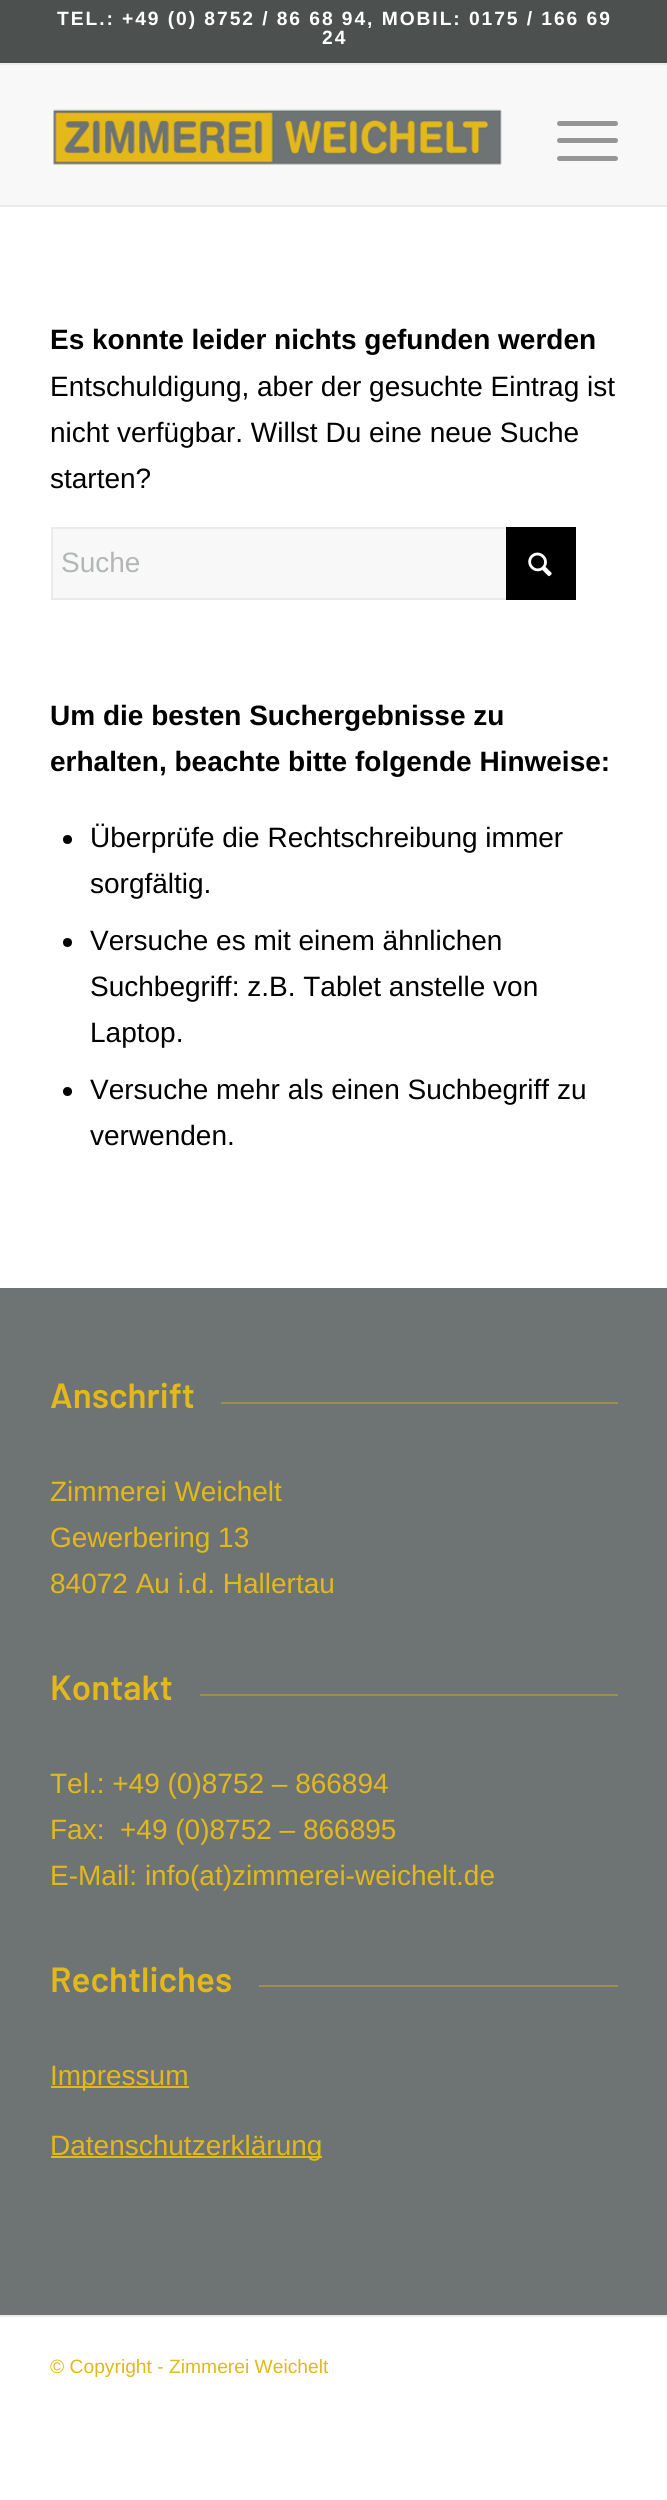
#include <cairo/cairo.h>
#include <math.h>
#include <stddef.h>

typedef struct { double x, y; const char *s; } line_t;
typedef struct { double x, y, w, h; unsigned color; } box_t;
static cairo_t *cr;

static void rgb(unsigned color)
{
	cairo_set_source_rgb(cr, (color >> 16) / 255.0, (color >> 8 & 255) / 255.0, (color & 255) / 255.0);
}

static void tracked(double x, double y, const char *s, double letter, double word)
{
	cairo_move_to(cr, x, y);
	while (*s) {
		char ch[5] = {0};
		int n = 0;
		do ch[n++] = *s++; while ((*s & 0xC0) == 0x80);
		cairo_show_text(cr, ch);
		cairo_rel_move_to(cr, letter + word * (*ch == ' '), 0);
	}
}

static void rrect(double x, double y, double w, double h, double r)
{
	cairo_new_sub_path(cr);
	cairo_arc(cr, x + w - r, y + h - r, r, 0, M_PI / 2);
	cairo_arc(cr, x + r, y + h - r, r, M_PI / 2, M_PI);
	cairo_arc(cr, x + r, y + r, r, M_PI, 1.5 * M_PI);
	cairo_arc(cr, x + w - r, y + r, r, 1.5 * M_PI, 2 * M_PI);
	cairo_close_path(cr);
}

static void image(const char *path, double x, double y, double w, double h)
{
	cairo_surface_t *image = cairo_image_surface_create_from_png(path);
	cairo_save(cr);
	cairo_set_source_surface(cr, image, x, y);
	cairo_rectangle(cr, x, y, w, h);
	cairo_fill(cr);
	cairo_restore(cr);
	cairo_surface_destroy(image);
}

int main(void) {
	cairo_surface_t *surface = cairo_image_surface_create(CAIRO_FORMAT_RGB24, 667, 2500);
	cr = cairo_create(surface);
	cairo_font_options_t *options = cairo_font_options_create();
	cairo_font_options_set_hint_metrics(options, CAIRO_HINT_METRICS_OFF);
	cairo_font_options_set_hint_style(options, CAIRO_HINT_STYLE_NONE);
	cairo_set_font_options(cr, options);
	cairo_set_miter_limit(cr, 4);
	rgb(0xffffff);
	cairo_paint(cr);
	{
		static const box_t items[] = {
			{0, 0, 667, 63, 0x4c5150},
			{0, 63, 667, 2, 0xebebeb},
			{0, 65, 667, 140, 0xf8f8f8},
			{0, 205, 667, 2, 0xebebeb},
		};
		for (size_t i = 0; i < sizeof items / sizeof *items; i++) {
			rgb(items[i].color);
			cairo_rectangle(cr, items[i].x, items[i].y, items[i].w, items[i].h);
			cairo_fill(cr);
		}
	}
	image("img/1.png", 53, 109, 449, 56);
	rgb(0x969696);
	rrect(557, 138, 61, 5, 2.5);
	cairo_fill(cr);
	rrect(557, 121, 61, 5, 2.5);
	cairo_fill(cr);
	rrect(557, 156, 61, 5, 2.5);
	cairo_fill(cr);
	rgb(0xf8f8f8);
	cairo_rectangle(cr, 53, 529, 453, 69);
	cairo_fill(cr);
	cairo_rectangle(cr, 52, 528, 523, 71);
	rgb(0xebebeb);
	cairo_stroke(cr);
	rgb(0x000000);
	cairo_rectangle(cr, 506, 527, 70, 73);
	cairo_fill(cr);
	image("img/2.png", 528, 552, 24, 25);
	cairo_arc(cr, 67.5, 839.5, 4.5, 0, 2 * M_PI);
	cairo_fill(cr);
	cairo_arc(cr, 67.5, 942.5, 4.5, 0, 2 * M_PI);
	cairo_fill(cr);
	cairo_arc(cr, 67.5, 1091.5, 4.5, 0, 2 * M_PI);
	cairo_fill(cr);
	{
		static const box_t items[] = {
			{0, 1288, 667, 1027, 0x6e7473},
			{221, 1402, 397, 2, 0x9d8f50},
			{200, 1694, 418, 2, 0x9d8f50},
			{259, 1985, 359, 2, 0x9d8f50},
			{51, 2086, 138, 2, 0xe3b81b},
			{51, 2156, 271, 2, 0xe3b81b},
			{0, 2315, 667, 2, 0xebebeb},
		};
		for (size_t i = 0; i < sizeof items / sizeof *items; i++) {
			rgb(items[i].color);
			cairo_rectangle(cr, items[i].x, items[i].y, items[i].w, items[i].h);
			cairo_fill(cr);
		}
	}
	cairo_select_font_face(cr, "Liberation Sans", CAIRO_FONT_SLANT_NORMAL, CAIRO_FONT_WEIGHT_BOLD);
	cairo_set_font_size(cr, 19.25);
	rgb(0xffffff);
	tracked(57, 25, "TEL.: +49 (0) 8752 / 86 68 94, MOBIL: 0175 / 166 69", 1.93, 0);
	tracked(322, 44, "24", 1.93, 0);
	cairo_set_font_size(cr, 28);
	rgb(0x000000);
	cairo_move_to(cr, 50, 349);
	cairo_show_text(cr, "Es konnte leider nichts gefunden werden");
	cairo_select_font_face(cr, "Liberation Sans", CAIRO_FONT_SLANT_NORMAL, CAIRO_FONT_WEIGHT_NORMAL);
	{
		static const line_t items[] = {
			{50, 396, "Entschuldigung, aber der gesuchte Eintrag ist"},
			{50, 442, "nicht verfügbar. Willst Du eine neue Suche"},
			{50, 488, "starten?"},
		};
		for (size_t i = 0; i < sizeof items / sizeof *items; i++) {
			cairo_move_to(cr, items[i].x, items[i].y);
			cairo_show_text(cr, items[i].s);
		}
	}
	rgb(0xb3b6b6);
	cairo_move_to(cr, 61, 572);
	cairo_show_text(cr, "Suche");
	cairo_select_font_face(cr, "Liberation Sans", CAIRO_FONT_SLANT_NORMAL, CAIRO_FONT_WEIGHT_BOLD);
	rgb(0x000000);
	cairo_move_to(cr, 50, 725);
	cairo_show_text(cr, "Um die besten Suchergebnisse zu");
	cairo_move_to(cr, 50, 771);
	cairo_show_text(cr, "erhalten, beachte bitte folgende Hinweise:");
	cairo_select_font_face(cr, "Liberation Sans", CAIRO_FONT_SLANT_NORMAL, CAIRO_FONT_WEIGHT_NORMAL);
	{
		static const line_t items[] = {
			{90, 847, "Überprüfe die Rechtschreibung immer"},
			{90, 893, "sorgfältig."},
			{90, 950, "Versuche es mit einem ähnlichen"},
			{90, 996, "Suchbegriff: z.B. Tablet anstelle von"},
			{90, 1042, "Laptop."},
			{90, 1099, "Versuche mehr als einen Suchbegriff zu"},
			{90, 1145, "verwenden."},
		};
		for (size_t i = 0; i < sizeof items / sizeof *items; i++) {
			cairo_move_to(cr, items[i].x, items[i].y);
			cairo_show_text(cr, items[i].s);
		}
	}
	cairo_select_font_face(cr, "Barlow SemiBold", CAIRO_FONT_SLANT_NORMAL, CAIRO_FONT_WEIGHT_NORMAL);
	cairo_set_font_size(cr, 35);
	rgb(0xe3b81b);
	cairo_move_to(cr, 50, 1408);
	cairo_show_text(cr, "Anschrift");
	cairo_select_font_face(cr, "Liberation Sans", CAIRO_FONT_SLANT_NORMAL, CAIRO_FONT_WEIGHT_NORMAL);
	cairo_set_font_size(cr, 28);
	{
		static const line_t items[] = {
			{50, 1501, "Zimmerei Weichelt"},
			{50, 1547, "Gewerbering 13"},
			{50, 1593, "84072 Au i.d. Hallertau"},
		};
		for (size_t i = 0; i < sizeof items / sizeof *items; i++) {
			cairo_move_to(cr, items[i].x, items[i].y);
			cairo_show_text(cr, items[i].s);
		}
	}
	cairo_select_font_face(cr, "Barlow SemiBold", CAIRO_FONT_SLANT_NORMAL, CAIRO_FONT_WEIGHT_NORMAL);
	cairo_set_font_size(cr, 35);
	cairo_move_to(cr, 50, 1700);
	cairo_show_text(cr, "Kontakt");
	cairo_select_font_face(cr, "Liberation Sans", CAIRO_FONT_SLANT_NORMAL, CAIRO_FONT_WEIGHT_NORMAL);
	cairo_set_font_size(cr, 28);
	{
		static const line_t items[] = {
			{50, 1793, "Tel.: +49 (0)8752 – 866894"},
			{50, 1839, "Fax:  +49 (0)8752 – 866895"},
			{50, 1885, "E-Mail: info(at)zimmerei-weichelt.de"},
		};
		for (size_t i = 0; i < sizeof items / sizeof *items; i++) {
			cairo_move_to(cr, items[i].x, items[i].y);
			cairo_show_text(cr, items[i].s);
		}
	}
	cairo_select_font_face(cr, "Barlow SemiBold", CAIRO_FONT_SLANT_NORMAL, CAIRO_FONT_WEIGHT_NORMAL);
	cairo_set_font_size(cr, 35);
	cairo_move_to(cr, 50, 1992);
	cairo_show_text(cr, "Rechtliches");
	cairo_select_font_face(cr, "Liberation Sans", CAIRO_FONT_SLANT_NORMAL, CAIRO_FONT_WEIGHT_NORMAL);
	cairo_set_font_size(cr, 28);
	cairo_move_to(cr, 50, 2085);
	cairo_show_text(cr, "Impressum");
	cairo_move_to(cr, 50, 2155);
	cairo_show_text(cr, "Datenschutzerklärung");
	cairo_set_font_size(cr, 19.25);
	cairo_move_to(cr, 50, 2373);
	cairo_show_text(cr, "© Copyright - Zimmerei Weichelt");
	cairo_surface_write_to_png(surface, "page.png");
	cairo_font_options_destroy(options);
	cairo_destroy(cr);
	cairo_surface_destroy(surface);
	return 0;
}
